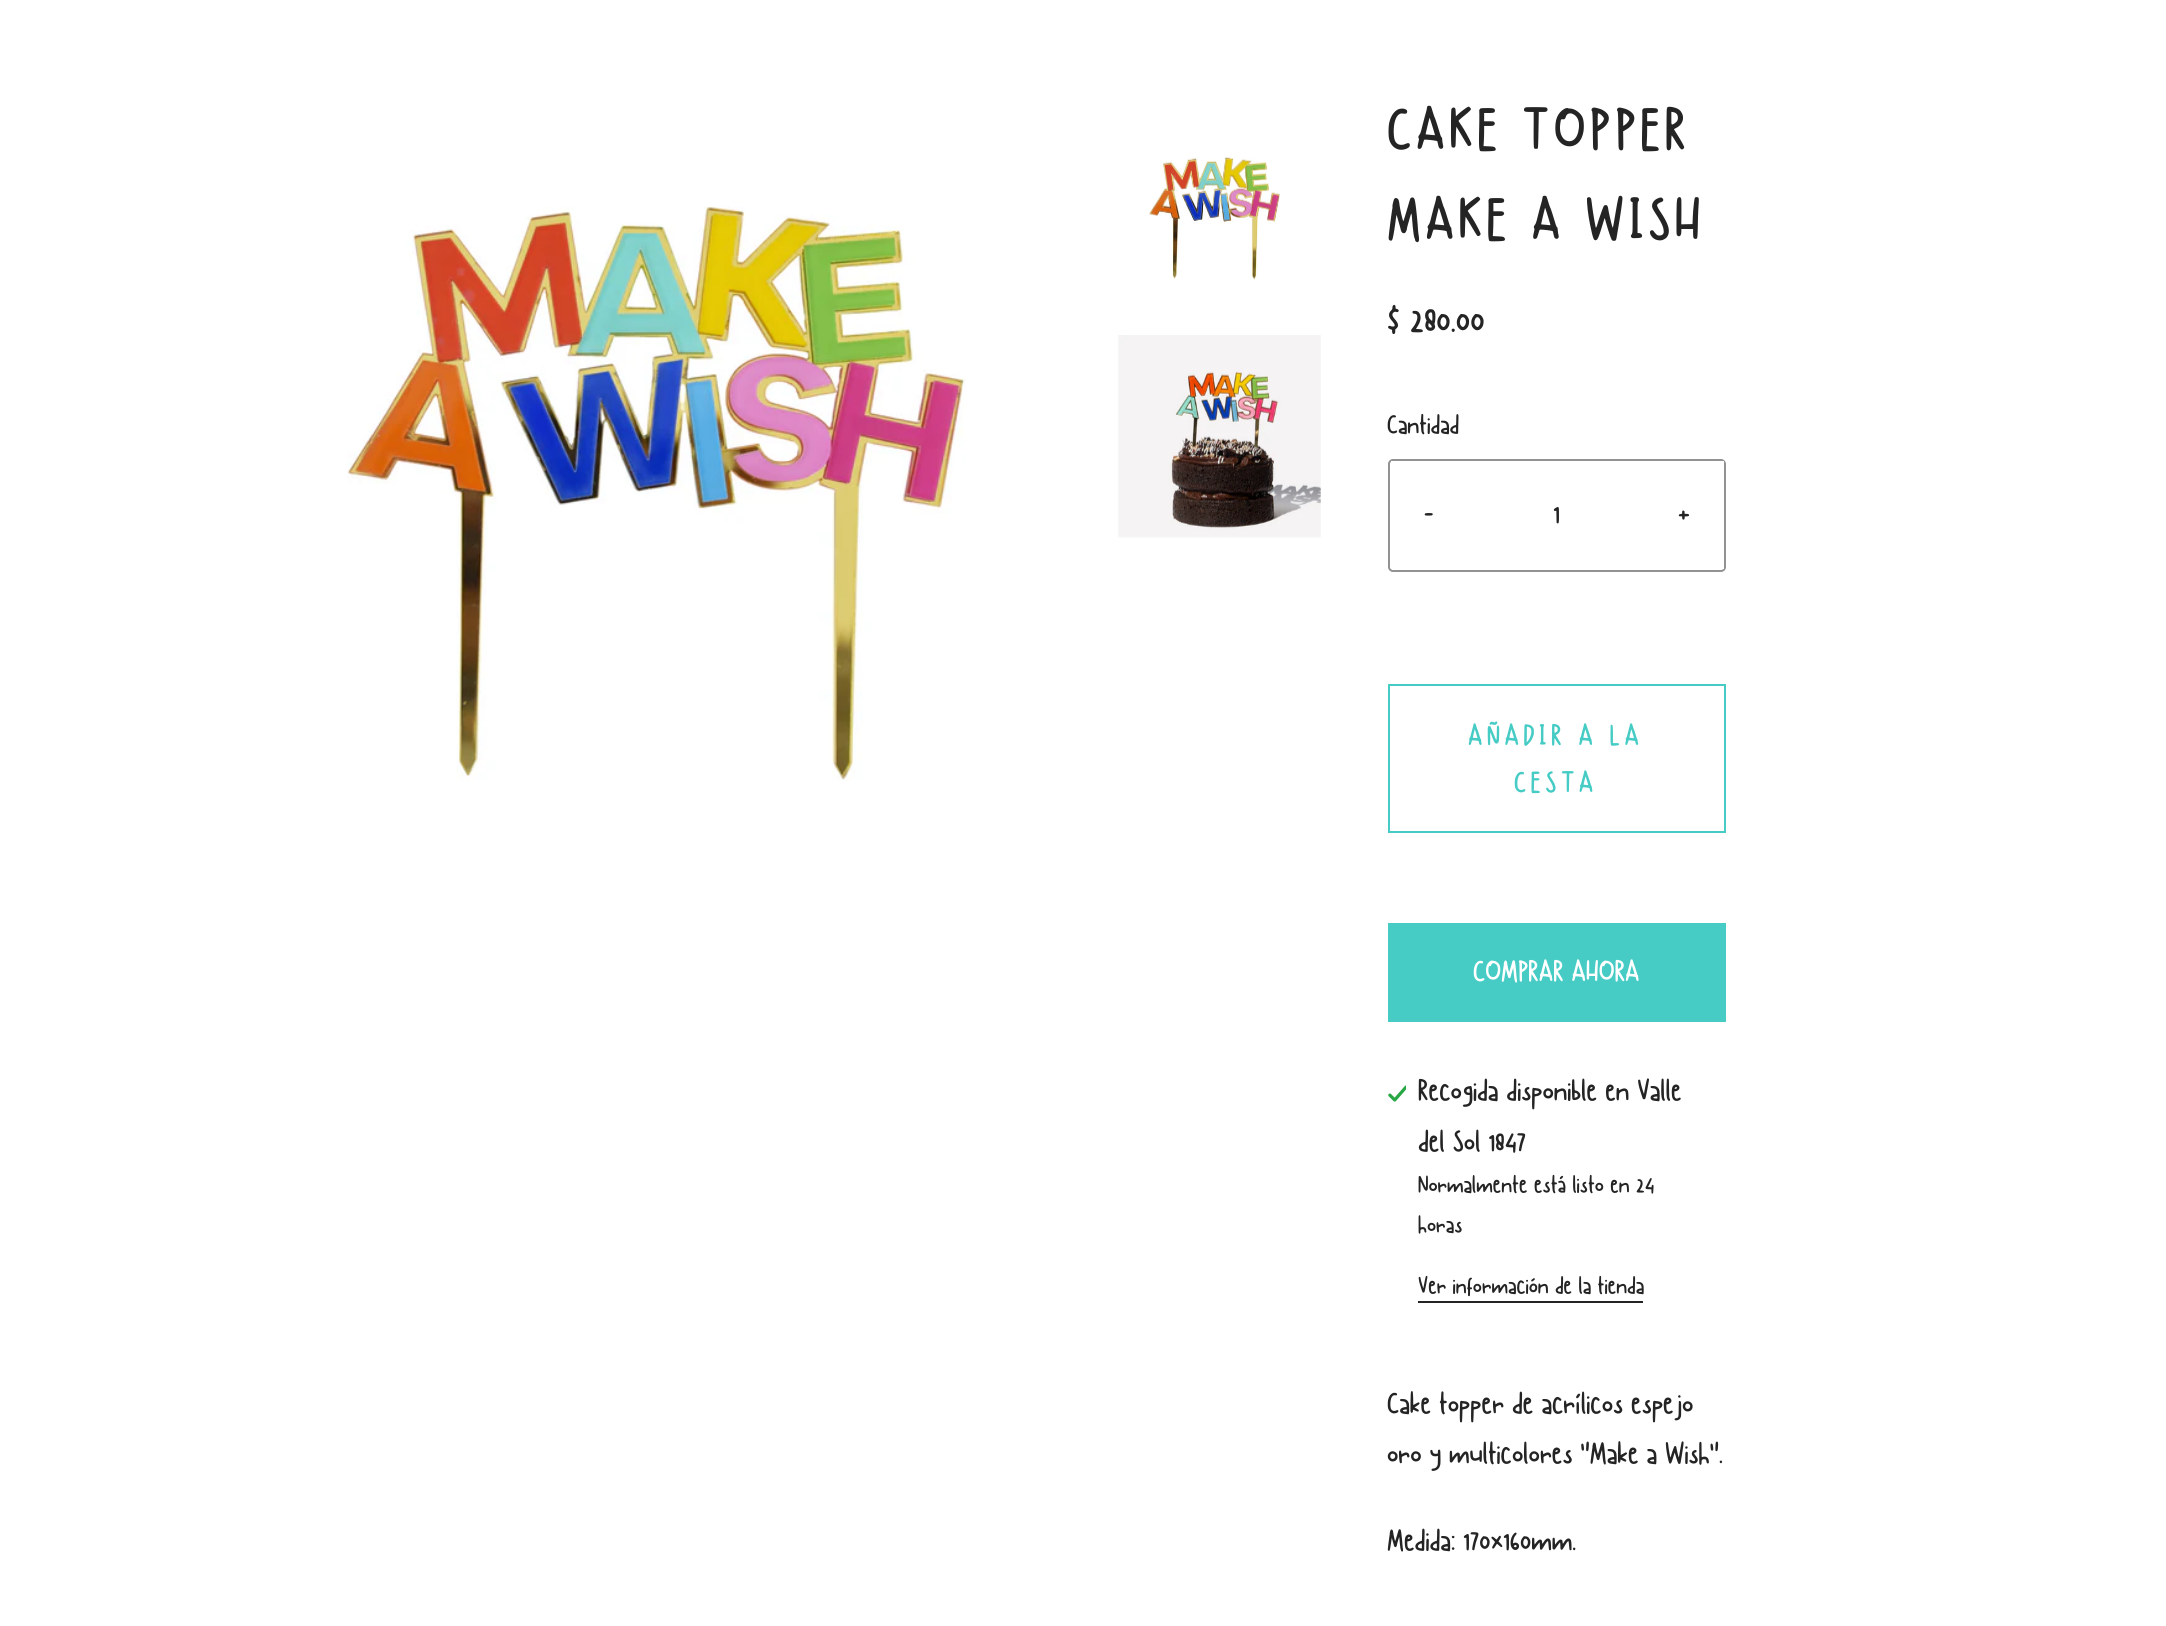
#include <cairo/cairo.h>
#include <math.h>
#include <stddef.h>

typedef struct { double x, y; const char *s; } line_t;
static cairo_t *cr;

static void rgb(unsigned color)
{
	cairo_set_source_rgb(cr, (color >> 16) / 255.0, (color >> 8 & 255) / 255.0, (color & 255) / 255.0);
}

static void tracked(double x, double y, const char *s, double letter, double word)
{
	cairo_move_to(cr, x, y);
	while (*s) {
		char ch[5] = {0};
		int n = 0;
		do ch[n++] = *s++; while ((*s & 0xC0) == 0x80);
		cairo_show_text(cr, ch);
		cairo_rel_move_to(cr, letter + word * (*ch == ' '), 0);
	}
}

static void rrect(double x, double y, double w, double h, double r)
{
	cairo_new_sub_path(cr);
	cairo_arc(cr, x + w - r, y + h - r, r, 0, M_PI / 2);
	cairo_arc(cr, x + r, y + h - r, r, M_PI / 2, M_PI);
	cairo_arc(cr, x + r, y + r, r, M_PI, 1.5 * M_PI);
	cairo_arc(cr, x + w - r, y + r, r, 1.5 * M_PI, 2 * M_PI);
	cairo_close_path(cr);
}

static void image(const char *path, double x, double y, double w, double h)
{
	cairo_surface_t *image = cairo_image_surface_create_from_png(path);
	cairo_save(cr);
	cairo_set_source_surface(cr, image, x, y);
	cairo_rectangle(cr, x, y, w, h);
	cairo_fill(cr);
	cairo_restore(cr);
	cairo_surface_destroy(image);
}

int main(void) {
	cairo_surface_t *surface = cairo_image_surface_create(CAIRO_FORMAT_RGB24, 2166, 1626);
	cr = cairo_create(surface);
	cairo_font_options_t *options = cairo_font_options_create();
	cairo_font_options_set_hint_metrics(options, CAIRO_HINT_METRICS_OFF);
	cairo_font_options_set_hint_style(options, CAIRO_HINT_STYLE_NONE);
	cairo_set_font_options(cr, options);
	cairo_set_miter_limit(cr, 4);
	rgb(0xffffff);
	cairo_paint(cr);
	image("img/1.png", 347, 206, 619, 575);
	image("img/2.png", 1149, 157, 131, 123);
	image("img/3.png", 1118, 335, 203, 203);
	rrect(1389, 460, 336, 111, 4);
	rgb(0x929292);
	cairo_stroke(cr);
	rgb(0xffffff);
	cairo_rectangle(cr, 1391, 461, 2, 1);
	cairo_fill(cr);
	cairo_rectangle(cr, 1721, 461, 3, 108);
	cairo_fill(cr);
	cairo_rectangle(cr, 1389, 685, 336, 147);
	rgb(0x46ccc5);
	cairo_stroke(cr);
	cairo_rectangle(cr, 1388, 923, 338, 99);
	cairo_fill(cr);
	image("img/4.png", 1388, 1085, 18, 17);
	rgb(0x242424);
	cairo_rectangle(cr, 1418, 1301, 225, 2);
	cairo_fill(cr);
	cairo_select_font_face(cr, "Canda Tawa", CAIRO_FONT_SLANT_NORMAL, CAIRO_FONT_WEIGHT_NORMAL);
	cairo_set_font_size(cr, 63);
	tracked(1387, 151, "CAKE TOPPER", 4.5, 0);
	tracked(1387, 241, "MAKE A WISH", 4.5, 0);
	cairo_set_font_size(cr, 40.5);
	cairo_move_to(cr, 1387, 333);
	cairo_show_text(cr, "$ 280.00");
	cairo_set_font_size(cr, 28);
	cairo_move_to(cr, 1387, 434);
	cairo_show_text(cr, "Cantidad");
	cairo_set_font_size(cr, 31.5);
	{
		static const line_t items[] = {
			{1424, 524, "-"},
			{1553, 524, "1"},
			{1678, 524, "+"},
		};
		for (size_t i = 0; i < sizeof items / sizeof *items; i++) {
			cairo_move_to(cr, items[i].x, items[i].y);
			cairo_show_text(cr, items[i].s);
		}
	}
	rgb(0x46ccc5);
	tracked(1468, 746, "AÑADIR A LA", 4.5, 0);
	tracked(1514, 793, "CESTA", 4.5, 0);
	rgb(0xffffff);
	cairo_move_to(cr, 1473, 982);
	cairo_show_text(cr, "COMPRAR AHORA");
	rgb(0x242424);
	cairo_move_to(cr, 1418, 1101);
	cairo_show_text(cr, "Recogida disponible en Valle");
	cairo_move_to(cr, 1418, 1152);
	cairo_show_text(cr, "del Sol 1847");
	cairo_set_font_size(cr, 25.25);
	{
		static const line_t items[] = {
			{1418, 1193, "Normalmente está listo en 24"},
			{1418, 1233, "horas"},
			{1418, 1294, "Ver información de la tienda"},
		};
		for (size_t i = 0; i < sizeof items / sizeof *items; i++) {
			cairo_move_to(cr, items[i].x, items[i].y);
			cairo_show_text(cr, items[i].s);
		}
	}
	cairo_set_font_size(cr, 31.5);
	{
		static const line_t items[] = {
			{1387, 1414, "Cake topper de acrílicos espejo"},
			{1387, 1464, "oro y multicolores \"Make a Wish\"."},
			{1387, 1551, "Medida: 170x160mm."},
		};
		for (size_t i = 0; i < sizeof items / sizeof *items; i++) {
			cairo_move_to(cr, items[i].x, items[i].y);
			cairo_show_text(cr, items[i].s);
		}
	}
	cairo_surface_write_to_png(surface, "page.png");
	cairo_font_options_destroy(options);
	cairo_destroy(cr);
	cairo_surface_destroy(surface);
	return 0;
}
